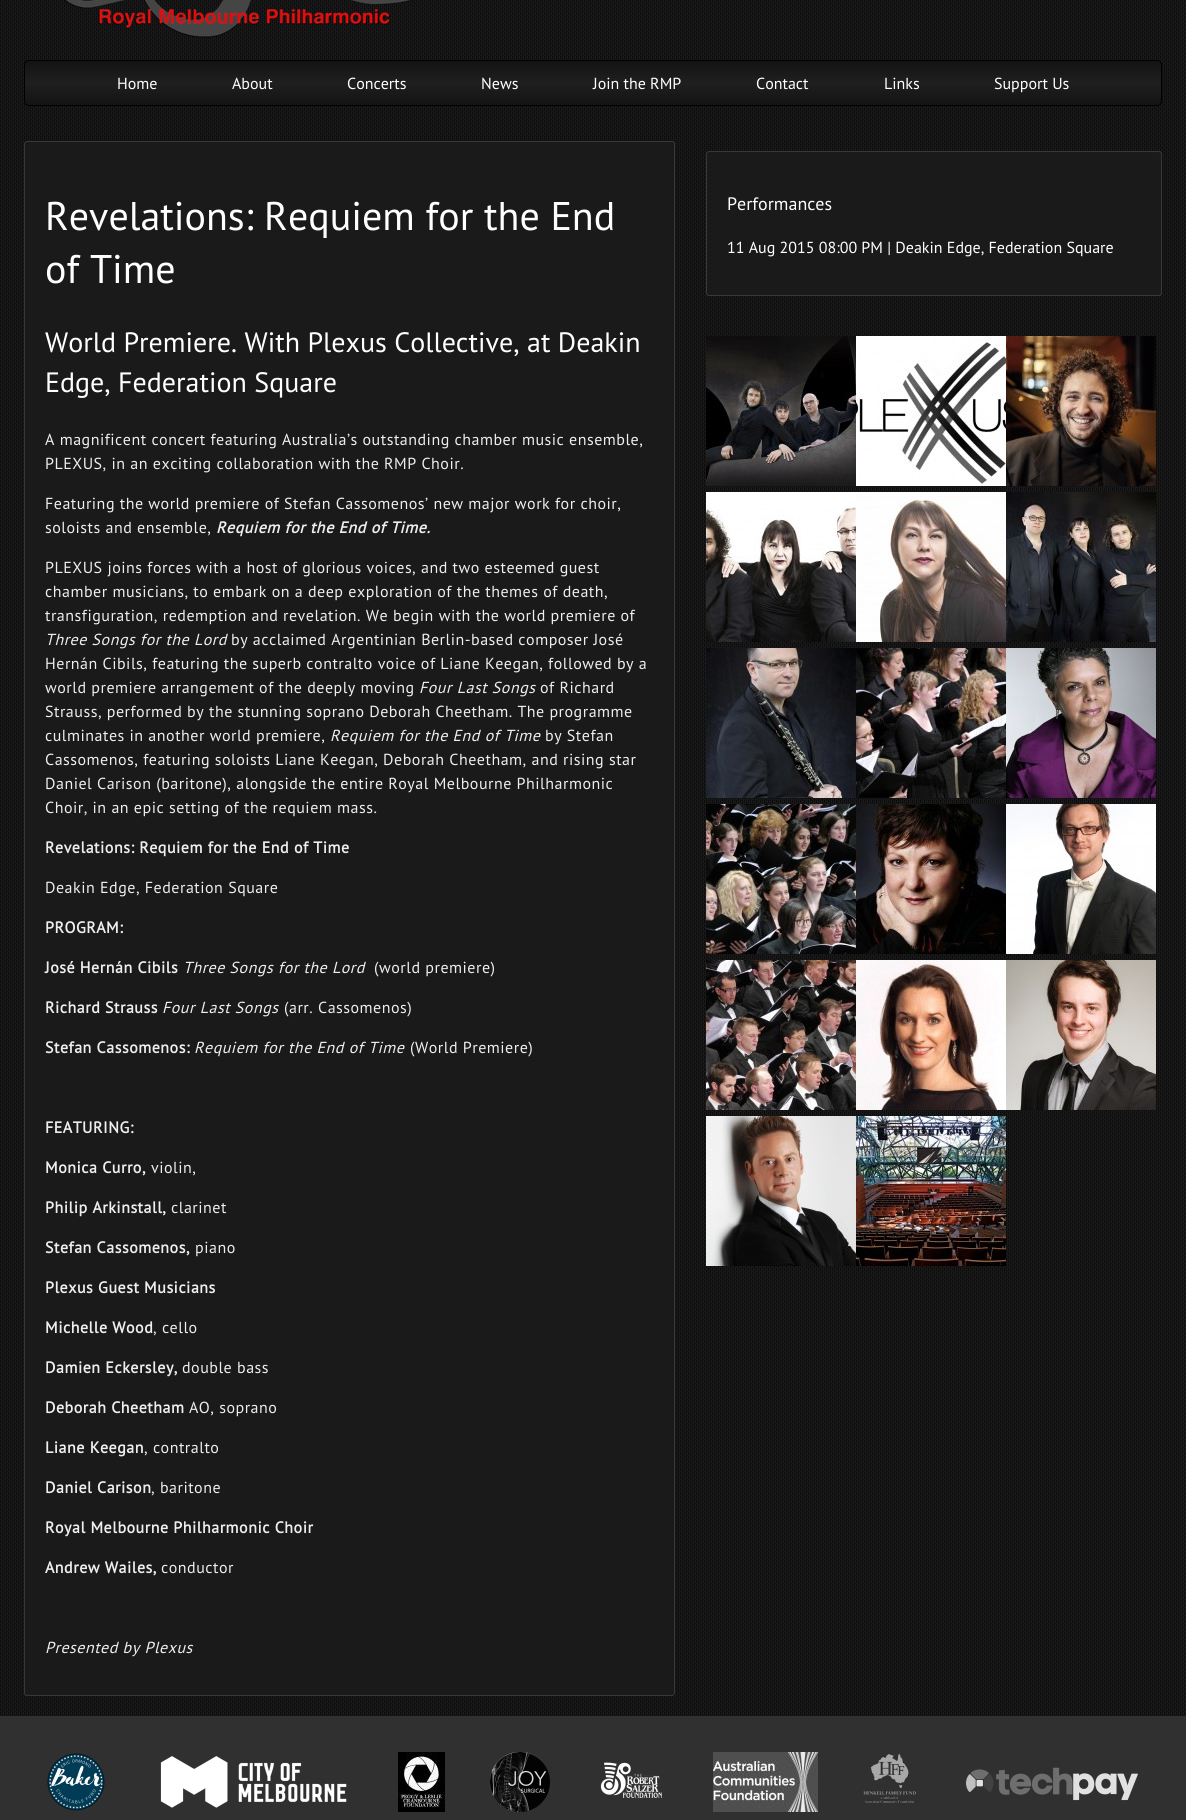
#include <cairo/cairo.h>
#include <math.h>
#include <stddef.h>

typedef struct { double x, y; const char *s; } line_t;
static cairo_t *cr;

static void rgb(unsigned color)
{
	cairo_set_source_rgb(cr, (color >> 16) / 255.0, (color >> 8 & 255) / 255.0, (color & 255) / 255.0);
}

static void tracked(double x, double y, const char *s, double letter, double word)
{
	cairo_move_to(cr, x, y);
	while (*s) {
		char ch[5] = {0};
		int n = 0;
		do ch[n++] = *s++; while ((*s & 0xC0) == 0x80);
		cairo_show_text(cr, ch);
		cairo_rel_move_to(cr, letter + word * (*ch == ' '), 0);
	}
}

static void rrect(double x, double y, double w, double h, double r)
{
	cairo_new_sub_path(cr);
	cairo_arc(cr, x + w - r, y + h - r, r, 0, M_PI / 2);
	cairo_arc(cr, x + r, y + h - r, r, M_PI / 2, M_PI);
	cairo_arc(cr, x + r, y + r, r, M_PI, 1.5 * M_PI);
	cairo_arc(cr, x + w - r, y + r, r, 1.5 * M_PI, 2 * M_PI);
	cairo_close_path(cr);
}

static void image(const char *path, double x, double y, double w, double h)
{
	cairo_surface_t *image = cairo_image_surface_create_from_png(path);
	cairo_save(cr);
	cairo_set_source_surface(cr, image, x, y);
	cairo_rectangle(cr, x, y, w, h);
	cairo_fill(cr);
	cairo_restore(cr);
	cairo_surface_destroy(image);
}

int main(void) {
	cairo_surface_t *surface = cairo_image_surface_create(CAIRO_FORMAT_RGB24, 1186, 1820);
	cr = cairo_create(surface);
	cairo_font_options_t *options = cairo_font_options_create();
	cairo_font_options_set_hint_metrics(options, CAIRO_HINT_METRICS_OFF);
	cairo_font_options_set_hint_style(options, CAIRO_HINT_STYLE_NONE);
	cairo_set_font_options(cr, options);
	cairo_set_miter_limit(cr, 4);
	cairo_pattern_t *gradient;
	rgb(0xffffff);
	cairo_paint(cr);
	image("img/1.png", 0, 0, 1186, 1716);
	image("img/2.png", 64, 0, 348, 38);
	cairo_save(cr);
	rrect(24, 60, 1138, 46, 5);
	cairo_clip(cr);
	gradient = cairo_pattern_create_linear(593, 105, 593, 61);
	cairo_pattern_add_color_stop_rgba(gradient, 0, 0.075, 0.075, 0.075, 1);
	cairo_pattern_add_color_stop_rgba(gradient, 0.5, 0.122, 0.122, 0.122, 1);
	cairo_pattern_add_color_stop_rgba(gradient, 1, 0.075, 0.075, 0.075, 1);
	cairo_set_source(cr, gradient);
	cairo_pattern_destroy(gradient);
	cairo_rectangle(cr, 24, 61, 1138, 44);
	cairo_fill(cr);
	cairo_restore(cr);
	rrect(24.5, 60.5, 1137, 45, 4.5);
	rgb(0x000000);
	cairo_set_line_width(cr, 1);
	cairo_stroke(cr);
	rgb(0x1b1a1a);
	rrect(24, 141, 651, 1555, 3);
	cairo_fill(cr);
	rrect(24.5, 141.5, 650, 1554, 2.5);
	cairo_set_source_rgba(cr, 1, 1, 1, 0.13);
	cairo_stroke(cr);
	rgb(0x1b1a1a);
	rrect(706, 151, 456, 145, 3);
	cairo_fill(cr);
	rrect(706.5, 151.5, 455, 144, 2.5);
	cairo_set_source_rgba(cr, 1, 1, 1, 0.13);
	cairo_stroke(cr);
	image("img/3.png", 706, 336, 150, 150);
	image("img/4.png", 856, 336, 150, 150);
	image("img/5.png", 1006, 336, 150, 150);
	image("img/6.png", 706, 492, 150, 150);
	image("img/7.png", 856, 492, 150, 150);
	image("img/8.png", 1006, 492, 150, 150);
	image("img/9.png", 706, 648, 150, 150);
	image("img/10.png", 856, 648, 150, 150);
	image("img/11.png", 1006, 648, 150, 150);
	image("img/12.png", 706, 804, 150, 150);
	image("img/13.png", 856, 804, 150, 150);
	image("img/14.png", 1006, 804, 150, 150);
	image("img/15.png", 706, 960, 150, 150);
	image("img/16.png", 856, 960, 150, 150);
	image("img/17.png", 1006, 960, 150, 150);
	image("img/18.png", 706, 1116, 150, 150);
	image("img/19.png", 856, 1116, 150, 150);
	rgb(0x303030);
	cairo_rectangle(cr, 0, 1716, 1186, 104);
	cairo_fill(cr);
	image("img/20.png", 47, 1753, 58, 58);
	image("img/21.png", 160, 1756, 187, 52);
	image("img/22.png", 398, 1752, 47, 60);
	image("img/23.png", 490, 1752, 60, 60);
	image("img/24.png", 600, 1762, 62, 36);
	image("img/25.png", 713, 1752, 105, 60);
	image("img/26.png", 863, 1753, 53, 51);
	image("img/27.png", 965, 1767, 173, 34);
	cairo_select_font_face(cr, "PT Sans", CAIRO_FONT_SLANT_NORMAL, CAIRO_FONT_WEIGHT_NORMAL);
	cairo_set_font_size(cr, 16);
	rgb(0xffffff);
	{
		static const line_t items[] = {
			{117, 89, "Home"},
			{232, 89, "About"},
			{347, 89, "Concerts"},
			{481, 89, "News"},
			{593, 89, "Join the RMP"},
			{756, 89, "Contact"},
			{884, 89, "Links"},
			{994, 89, "Support Us"},
		};
		for (size_t i = 0; i < sizeof items / sizeof *items; i++) {
			cairo_move_to(cr, items[i].x, items[i].y);
			cairo_show_text(cr, items[i].s);
		}
	}
	cairo_set_font_size(cr, 40);
	cairo_move_to(cr, 45, 230);
	cairo_show_text(cr, "Revelations: Requiem for the End");
	cairo_move_to(cr, 45, 283);
	cairo_show_text(cr, "of Time");
	cairo_set_font_size(cr, 28);
	cairo_move_to(cr, 45, 352);
	cairo_show_text(cr, "World Premiere. With Plexus Collective, at Deakin");
	cairo_move_to(cr, 45, 392);
	cairo_show_text(cr, "Edge, Federation Square");
	cairo_set_font_size(cr, 16);
	rgb(0xeeeeee);
	{
		static const line_t items[] = {
			{45, 445, "A magnificent concert featuring Australia’s outstanding chamber music ensemble,"},
			{45, 469, "PLEXUS, in an exciting collaboration with the RMP Choir."},
			{45, 509, "Featuring the world premiere of Stefan Cassomenos’ new major work for choir,"},
			{45, 533, "soloists and ensemble,"},
		};
		for (size_t i = 0; i < sizeof items / sizeof *items; i++) {
			tracked(items[i].x, items[i].y, items[i].s, 0.5, 0);
		}
	}
	cairo_select_font_face(cr, "PT Sans", CAIRO_FONT_SLANT_ITALIC, CAIRO_FONT_WEIGHT_BOLD);
	tracked(216, 533, "Requiem for the End of Time.", 0.5, 0);
	cairo_select_font_face(cr, "PT Sans", CAIRO_FONT_SLANT_NORMAL, CAIRO_FONT_WEIGHT_NORMAL);
	{
		static const line_t items[] = {
			{45, 573, "PLEXUS joins forces with a host of glorious voices, and two esteemed guest"},
			{45, 597, "chamber musicians, to embark on a deep exploration of the themes of death,"},
			{45, 621, "transfiguration, redemption and revelation. We begin with the world premiere of"},
		};
		for (size_t i = 0; i < sizeof items / sizeof *items; i++) {
			tracked(items[i].x, items[i].y, items[i].s, 0.5, 0);
		}
	}
	cairo_select_font_face(cr, "PT Sans", CAIRO_FONT_SLANT_ITALIC, CAIRO_FONT_WEIGHT_NORMAL);
	tracked(45, 645, "Three Songs for the Lord", 0.5, 0);
	cairo_select_font_face(cr, "PT Sans", CAIRO_FONT_SLANT_NORMAL, CAIRO_FONT_WEIGHT_NORMAL);
	{
		static const line_t items[] = {
			{231, 645, "by acclaimed Argentinian Berlin-based composer José"},
			{45, 669, "Hernán Cibils, featuring the superb contralto voice of Liane Keegan, followed by a"},
			{45, 693, "world premiere arrangement of the deeply moving"},
		};
		for (size_t i = 0; i < sizeof items / sizeof *items; i++) {
			tracked(items[i].x, items[i].y, items[i].s, 0.5, 0);
		}
	}
	cairo_select_font_face(cr, "PT Sans", CAIRO_FONT_SLANT_ITALIC, CAIRO_FONT_WEIGHT_NORMAL);
	tracked(419, 693, "Four Last Songs", 0.5, 0);
	cairo_select_font_face(cr, "PT Sans", CAIRO_FONT_SLANT_NORMAL, CAIRO_FONT_WEIGHT_NORMAL);
	{
		static const line_t items[] = {
			{540, 693, "of Richard"},
			{45, 717, "Strauss, performed by the stunning soprano Deborah Cheetham. The programme"},
			{45, 741, "culminates in another world premiere,"},
		};
		for (size_t i = 0; i < sizeof items / sizeof *items; i++) {
			tracked(items[i].x, items[i].y, items[i].s, 0.5, 0);
		}
	}
	cairo_select_font_face(cr, "PT Sans", CAIRO_FONT_SLANT_ITALIC, CAIRO_FONT_WEIGHT_NORMAL);
	tracked(330, 741, "Requiem for the End of Time", 0.5, 0);
	cairo_select_font_face(cr, "PT Sans", CAIRO_FONT_SLANT_NORMAL, CAIRO_FONT_WEIGHT_NORMAL);
	{
		static const line_t items[] = {
			{545, 741, "by Stefan"},
			{45, 765, "Cassomenos, featuring soloists Liane Keegan, Deborah Cheetham, and rising star"},
			{45, 789, "Daniel Carison (baritone), alongside the entire Royal Melbourne Philharmonic"},
			{45, 813, "Choir, in an epic setting of the requiem mass."},
		};
		for (size_t i = 0; i < sizeof items / sizeof *items; i++) {
			tracked(items[i].x, items[i].y, items[i].s, 0.5, 0);
		}
	}
	cairo_select_font_face(cr, "PT Sans", CAIRO_FONT_SLANT_NORMAL, CAIRO_FONT_WEIGHT_BOLD);
	tracked(45, 853, "Revelations: Requiem for the End of Time", 0.5, 0);
	cairo_select_font_face(cr, "PT Sans", CAIRO_FONT_SLANT_NORMAL, CAIRO_FONT_WEIGHT_NORMAL);
	tracked(45, 893, "Deakin Edge, Federation Square", 0.5, 0);
	cairo_select_font_face(cr, "PT Sans", CAIRO_FONT_SLANT_NORMAL, CAIRO_FONT_WEIGHT_BOLD);
	tracked(45, 933, "PROGRAM:", 0.5, 0);
	tracked(45, 973, "José Hernán Cibils", 0.5, 0);
	cairo_select_font_face(cr, "PT Sans", CAIRO_FONT_SLANT_ITALIC, CAIRO_FONT_WEIGHT_NORMAL);
	tracked(183, 973, "Three Songs for the Lord", 0.5, 0);
	cairo_select_font_face(cr, "PT Sans", CAIRO_FONT_SLANT_NORMAL, CAIRO_FONT_WEIGHT_NORMAL);
	tracked(374, 973, "(world premiere)", 0.5, 0);
	cairo_select_font_face(cr, "PT Sans", CAIRO_FONT_SLANT_NORMAL, CAIRO_FONT_WEIGHT_BOLD);
	tracked(45, 1013, "Richard Strauss", 0.5, 0);
	cairo_select_font_face(cr, "PT Sans", CAIRO_FONT_SLANT_ITALIC, CAIRO_FONT_WEIGHT_NORMAL);
	tracked(162, 1013, "Four Last Songs", 0.5, 0);
	cairo_select_font_face(cr, "PT Sans", CAIRO_FONT_SLANT_NORMAL, CAIRO_FONT_WEIGHT_NORMAL);
	tracked(284, 1013, "(arr. Cassomenos)", 0.5, 0);
	cairo_select_font_face(cr, "PT Sans", CAIRO_FONT_SLANT_NORMAL, CAIRO_FONT_WEIGHT_BOLD);
	tracked(45, 1053, "Stefan Cassomenos:", 0.5, 0);
	cairo_select_font_face(cr, "PT Sans", CAIRO_FONT_SLANT_ITALIC, CAIRO_FONT_WEIGHT_NORMAL);
	tracked(194, 1053, "Requiem for the End of Time", 0.5, 0);
	cairo_select_font_face(cr, "PT Sans", CAIRO_FONT_SLANT_NORMAL, CAIRO_FONT_WEIGHT_NORMAL);
	tracked(410, 1053, "(World Premiere)", 0.5, 0);
	cairo_select_font_face(cr, "PT Sans", CAIRO_FONT_SLANT_NORMAL, CAIRO_FONT_WEIGHT_BOLD);
	tracked(45, 1133, "FEATURING:", 0.5, 0);
	tracked(45, 1173, "Monica Curro,", 0.5, 0);
	cairo_select_font_face(cr, "PT Sans", CAIRO_FONT_SLANT_NORMAL, CAIRO_FONT_WEIGHT_NORMAL);
	tracked(151, 1173, "violin,", 0.5, 0);
	cairo_select_font_face(cr, "PT Sans", CAIRO_FONT_SLANT_NORMAL, CAIRO_FONT_WEIGHT_BOLD);
	tracked(45, 1213, "Philip Arkinstall,", 0.5, 0);
	cairo_select_font_face(cr, "PT Sans", CAIRO_FONT_SLANT_NORMAL, CAIRO_FONT_WEIGHT_NORMAL);
	tracked(171, 1213, "clarinet", 0.5, 0);
	cairo_select_font_face(cr, "PT Sans", CAIRO_FONT_SLANT_NORMAL, CAIRO_FONT_WEIGHT_BOLD);
	tracked(45, 1253, "Stefan Cassomenos,", 0.5, 0);
	cairo_select_font_face(cr, "PT Sans", CAIRO_FONT_SLANT_NORMAL, CAIRO_FONT_WEIGHT_NORMAL);
	tracked(195, 1253, "piano", 0.5, 0);
	cairo_select_font_face(cr, "PT Sans", CAIRO_FONT_SLANT_NORMAL, CAIRO_FONT_WEIGHT_BOLD);
	tracked(45, 1293, "Plexus Guest Musicians", 0.5, 0);
	tracked(45, 1333, "Michelle Wood", 0.5, 0);
	cairo_select_font_face(cr, "PT Sans", CAIRO_FONT_SLANT_NORMAL, CAIRO_FONT_WEIGHT_NORMAL);
	tracked(153, 1333, ", cello", 0.5, 0);
	cairo_select_font_face(cr, "PT Sans", CAIRO_FONT_SLANT_NORMAL, CAIRO_FONT_WEIGHT_BOLD);
	tracked(45, 1373, "Damien Eckersley,", 0.5, 0);
	cairo_select_font_face(cr, "PT Sans", CAIRO_FONT_SLANT_NORMAL, CAIRO_FONT_WEIGHT_NORMAL);
	tracked(182, 1373, "double bass", 0.5, 0);
	cairo_select_font_face(cr, "PT Sans", CAIRO_FONT_SLANT_NORMAL, CAIRO_FONT_WEIGHT_BOLD);
	tracked(45, 1413, "Deborah Cheetham", 0.5, 0);
	cairo_select_font_face(cr, "PT Sans", CAIRO_FONT_SLANT_NORMAL, CAIRO_FONT_WEIGHT_NORMAL);
	tracked(189, 1413, "AO, soprano", 0.5, 0);
	cairo_select_font_face(cr, "PT Sans", CAIRO_FONT_SLANT_NORMAL, CAIRO_FONT_WEIGHT_BOLD);
	tracked(45, 1453, "Liane Keegan", 0.5, 0);
	cairo_select_font_face(cr, "PT Sans", CAIRO_FONT_SLANT_NORMAL, CAIRO_FONT_WEIGHT_NORMAL);
	tracked(144, 1453, ", contralto", 0.5, 0);
	cairo_select_font_face(cr, "PT Sans", CAIRO_FONT_SLANT_NORMAL, CAIRO_FONT_WEIGHT_BOLD);
	tracked(45, 1493, "Daniel Carison", 0.5, 0);
	cairo_select_font_face(cr, "PT Sans", CAIRO_FONT_SLANT_NORMAL, CAIRO_FONT_WEIGHT_NORMAL);
	tracked(151, 1493, ", baritone", 0.5, 0);
	cairo_select_font_face(cr, "PT Sans", CAIRO_FONT_SLANT_NORMAL, CAIRO_FONT_WEIGHT_BOLD);
	tracked(45, 1533, "Royal Melbourne Philharmonic Choir", 0.5, 0);
	tracked(45, 1573, "Andrew Wailes,", 0.5, 0);
	cairo_select_font_face(cr, "PT Sans", CAIRO_FONT_SLANT_NORMAL, CAIRO_FONT_WEIGHT_NORMAL);
	tracked(161, 1573, "conductor", 0.5, 0);
	cairo_select_font_face(cr, "PT Sans", CAIRO_FONT_SLANT_ITALIC, CAIRO_FONT_WEIGHT_NORMAL);
	tracked(45, 1653, "Presented by Plexus", 0.5, 0);
	cairo_select_font_face(cr, "PT Sans", CAIRO_FONT_SLANT_NORMAL, CAIRO_FONT_WEIGHT_NORMAL);
	cairo_set_font_size(cr, 18);
	rgb(0xffffff);
	cairo_move_to(cr, 727, 210);
	cairo_show_text(cr, "Performances");
	cairo_set_font_size(cr, 16);
	cairo_move_to(cr, 727, 253);
	cairo_show_text(cr, "11 Aug 2015 08:00 PM | Deakin Edge, Federation Square");
	cairo_surface_write_to_png(surface, "page.png");
	cairo_font_options_destroy(options);
	cairo_destroy(cr);
	cairo_surface_destroy(surface);
	return 0;
}
